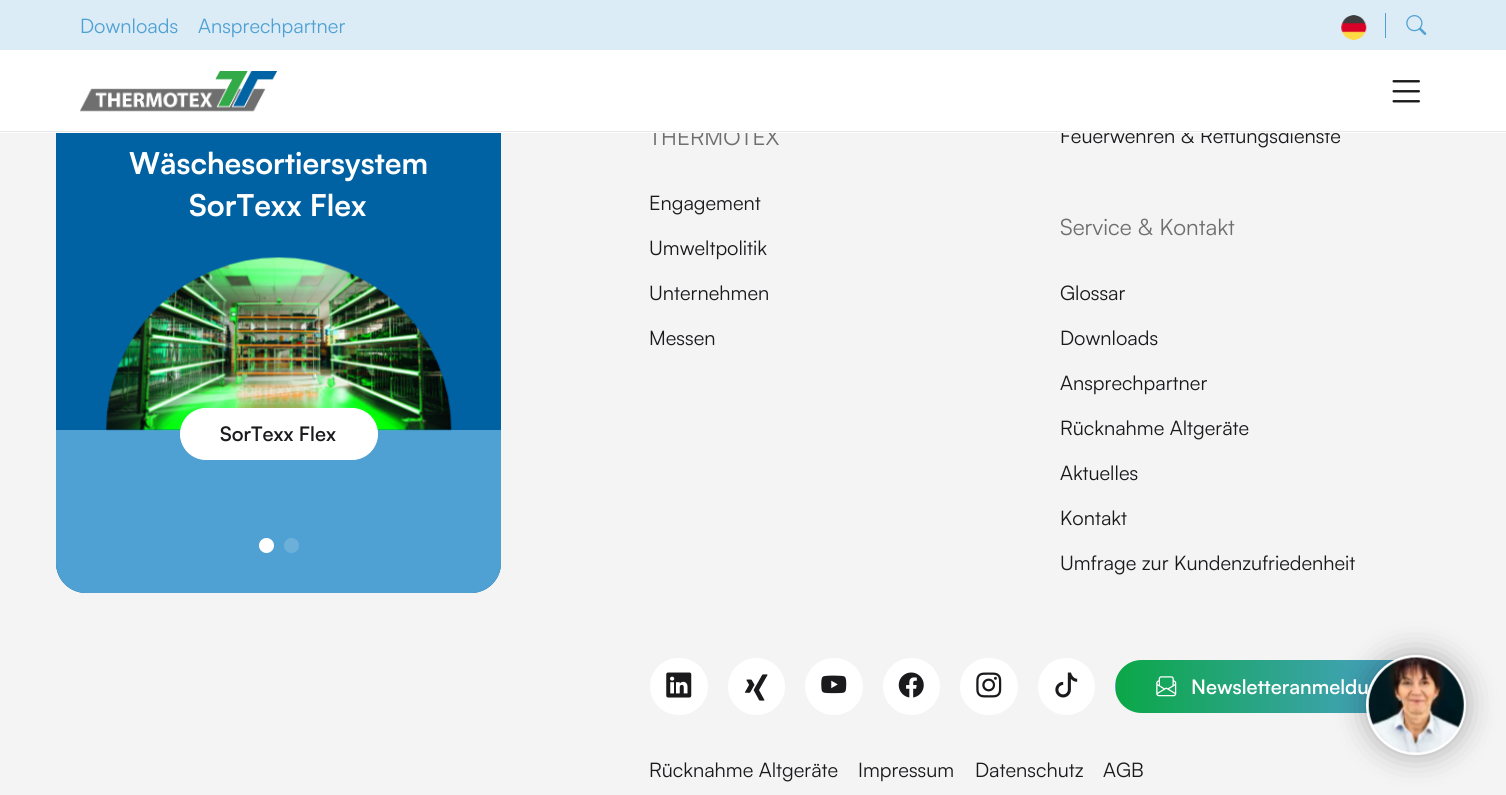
#include <cairo/cairo.h>
#include <math.h>
#include <stddef.h>

typedef struct { double x, y; const char *s; } line_t;
static cairo_t *cr;

static void rgb(unsigned color)
{
	cairo_set_source_rgb(cr, (color >> 16) / 255.0, (color >> 8 & 255) / 255.0, (color & 255) / 255.0);
}

static void rrect(double x, double y, double w, double h, double r)
{
	cairo_new_sub_path(cr);
	cairo_arc(cr, x + w - r, y + h - r, r, 0, M_PI / 2);
	cairo_arc(cr, x + r, y + h - r, r, M_PI / 2, M_PI);
	cairo_arc(cr, x + r, y + r, r, M_PI, 1.5 * M_PI);
	cairo_arc(cr, x + w - r, y + r, r, 1.5 * M_PI, 2 * M_PI);
	cairo_close_path(cr);
}

static void soft_shadow(double x, double y, double w, double h, double r, double blur, double alpha)
{
	cairo_push_group_with_content(cr, CAIRO_CONTENT_ALPHA);
	cairo_set_operator(cr, CAIRO_OPERATOR_SOURCE);
	for (int i = 15; i >= -15 && fmin(w, h) + blur * i / 3 > 0; i -= 2) {
		double e = blur * i / 6;
		cairo_set_source_rgba(cr, 0, 0, 0, alpha * erfc((i - 1) / 8.5) / 2);
		rrect(x - e, y - e, w + 2 * e, h + 2 * e, fmax(0, fmin(r + e + blur * .6, fmin(w, h) / 2 + e)));
		cairo_fill(cr);
	}
	cairo_pattern_t *soft = cairo_pop_group(cr);
	cairo_mask(cr, soft);
	cairo_pattern_destroy(soft);
}

static void image(const char *path, double x, double y, double w, double h)
{
	cairo_surface_t *image = cairo_image_surface_create_from_png(path);
	cairo_save(cr);
	cairo_set_source_surface(cr, image, x, y);
	cairo_rectangle(cr, x, y, w, h);
	cairo_fill(cr);
	cairo_restore(cr);
	cairo_surface_destroy(image);
}

int main(void) {
	cairo_surface_t *surface = cairo_image_surface_create(CAIRO_FORMAT_RGB24, 1506, 795);
	cr = cairo_create(surface);
	cairo_font_options_t *options = cairo_font_options_create();
	cairo_font_options_set_hint_metrics(options, CAIRO_HINT_METRICS_OFF);
	cairo_font_options_set_hint_style(options, CAIRO_HINT_STYLE_NONE);
	cairo_set_font_options(cr, options);
	cairo_set_miter_limit(cr, 4);
	cairo_pattern_t *gradient;
	rgb(0xf4f4f4);
	cairo_paint(cr);
	rgb(0x0061a3);
	rrect(56, -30, 445, 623, 30);
	cairo_fill(cr);
	rgb(0xdcecf6);
	cairo_rectangle(cr, 0, 0, 1506, 50);
	cairo_fill(cr);
	image("img/1.png", 1341, 15, 26, 25);
	rgb(0x50a1d3);
	cairo_rectangle(cr, 1385, 13, 1, 25);
	cairo_fill(cr);
	image("img/2.png", 1406, 15, 21, 20);
	cairo_new_path(cr);
	cairo_move_to(cr, 56, 430);
	cairo_line_to(cr, 501, 430);
	cairo_line_to(cr, 501, 563);
	cairo_curve_to(cr, 501, 579.5, 487.5, 593, 471, 593);
	cairo_line_to(cr, 86, 593);
	cairo_curve_to(cr, 69.5, 593, 56, 579.5, 56, 563);
	cairo_close_path(cr);
	cairo_fill(cr);
	image("img/5.png", 106, 257, 346, 174);
	rgb(0xffffff);
	rrect(180.5, 408.5, 197, 51, 25.5);
	cairo_fill_preserve(cr);
	cairo_set_line_width(cr, 1);
	cairo_stroke(cr);
	cairo_arc(cr, 266.5, 545.5, 7.5, 0, 2 * M_PI);
	cairo_fill(cr);
	rgb(0x6cb0da);
	cairo_arc(cr, 291.5, 545.5, 7.5, 0, 2 * M_PI);
	cairo_fill(cr);
	rgb(0xffffff);
	rrect(650, 658, 58, 57, 28.5);
	cairo_fill(cr);
	image("img/6.png", 666, 672, 26, 26);
	cairo_arc(cr, 756.5, 686.5, 28.5, 0, 2 * M_PI);
	cairo_fill(cr);
	image("img/7.png", 745, 674, 23, 27);
	rrect(805, 658, 58, 57, 28.5);
	cairo_fill(cr);
	image("img/8.png", 821, 675, 26, 19);
	cairo_arc(cr, 911.5, 686.5, 28.5, 0, 2 * M_PI);
	cairo_fill(cr);
	image("img/9.png", 898, 672, 26, 26);
	rrect(960, 658, 58, 57, 28.5);
	cairo_fill(cr);
	image("img/10.png", 976, 672, 26, 26);
	cairo_arc(cr, 1066.5, 686.5, 28.5, 0, 2 * M_PI);
	cairo_fill(cr);
	image("img/11.png", 1055, 672, 23, 26);
	cairo_save(cr);
	rrect(1115, 660, 319, 53, 26.5);
	cairo_clip(cr);
	gradient = cairo_pattern_create_linear(800, 686, 1116, 686);
	cairo_pattern_add_color_stop_rgba(gradient, 0, 0.043, 0.655, 0.278, 1);
	cairo_pattern_add_color_stop_rgba(gradient, 1, 0.314, 0.631, 0.827, 1);
	cairo_set_source(cr, gradient);
	cairo_pattern_destroy(gradient);
	cairo_rectangle(cr, 1115, 679, 1, 15);
	cairo_fill(cr);
	gradient = cairo_pattern_create_linear(1116, 686, 1433, 686);
	cairo_pattern_add_color_stop_rgba(gradient, 0, 0.043, 0.655, 0.278, 1);
	cairo_pattern_add_color_stop_rgba(gradient, 1, 0.314, 0.631, 0.827, 1);
	cairo_set_source(cr, gradient);
	cairo_pattern_destroy(gradient);
	cairo_rectangle(cr, 1116, 660, 287, 53);
	cairo_fill(cr);
	cairo_restore(cr);
	image("img/12.png", 1156, 676, 21, 21);
	rgb(0x000000);
	soft_shadow(1366, 655, 100, 100, 50, 15.5, 0.3);
	cairo_arc(cr, 1416, 705, 48.5, 0, 2 * M_PI);
	rgb(0xffffff);
	cairo_set_line_width(cr, 3);
	cairo_stroke(cr);
	image("img/13.png", 1368, 657, 96, 96);
	cairo_select_font_face(cr, "Satoshi", CAIRO_FONT_SLANT_NORMAL, CAIRO_FONT_WEIGHT_NORMAL);
	cairo_set_font_size(cr, 20);
	rgb(0x50a1d3);
	cairo_move_to(cr, 80, 33);
	cairo_show_text(cr, "Downloads");
	cairo_move_to(cr, 198, 33);
	cairo_show_text(cr, "Ansprechpartner");
	cairo_select_font_face(cr, "Satoshi", CAIRO_FONT_SLANT_NORMAL, CAIRO_FONT_WEIGHT_BOLD);
	cairo_set_font_size(cr, 30);
	rgb(0xffffff);
	cairo_move_to(cr, 129, 174);
	cairo_show_text(cr, "Wäschesortiersystem");
	cairo_move_to(cr, 189, 216);
	cairo_show_text(cr, "SorTexx Flex");
	cairo_select_font_face(cr, "Satoshi SemiBold", CAIRO_FONT_SLANT_NORMAL, CAIRO_FONT_WEIGHT_NORMAL);
	cairo_set_font_size(cr, 20);
	rgb(0x1a191c);
	cairo_move_to(cr, 220, 441);
	cairo_show_text(cr, "SorTexx Flex");
	cairo_select_font_face(cr, "Satoshi", CAIRO_FONT_SLANT_NORMAL, CAIRO_FONT_WEIGHT_NORMAL);
	cairo_set_font_size(cr, 22.5);
	rgb(0x6e6e6e);
	cairo_move_to(cr, 649, 145);
	cairo_show_text(cr, "THERMOTEX");
	cairo_set_font_size(cr, 20);
	rgb(0x1a191c);
	{
		static const line_t items[] = {
			{649, 210, "Engagement"},
			{649, 255, "Umweltpolitik"},
			{649, 300, "Unternehmen"},
			{649, 345, "Messen"},
			{1060, 143, "Feuerwehren & Rettungsdienste"},
		};
		for (size_t i = 0; i < sizeof items / sizeof *items; i++) {
			cairo_move_to(cr, items[i].x, items[i].y);
			cairo_show_text(cr, items[i].s);
		}
	}
	rgb(0xffffff);
	cairo_rectangle(cr, 0, 50, 1506, 83);
	cairo_fill(cr);
	image("img/4.png", 1392, 80, 28, 23);
	image("img/3.png", 80, 71, 198, 41);
	rgb(0xe8e8e8);
	cairo_rectangle(cr, 0, 131, 1506, 1);
	cairo_fill(cr);
	cairo_set_font_size(cr, 22.5);
	rgb(0x6e6e6e);
	cairo_move_to(cr, 1060, 235);
	cairo_show_text(cr, "Service & Kontakt");
	cairo_set_font_size(cr, 20);
	rgb(0x1a191c);
	{
		static const line_t items[] = {
			{1060, 300, "Glossar"},
			{1060, 345, "Downloads"},
			{1060, 390, "Ansprechpartner"},
			{1060, 435, "Rücknahme Altgeräte"},
			{1060, 480, "Aktuelles"},
			{1060, 525, "Kontakt"},
			{1060, 570, "Umfrage zur Kundenzufriedenheit"},
		};
		for (size_t i = 0; i < sizeof items / sizeof *items; i++) {
			cairo_move_to(cr, items[i].x, items[i].y);
			cairo_show_text(cr, items[i].s);
		}
	}
	cairo_select_font_face(cr, "Satoshi SemiBold", CAIRO_FONT_SLANT_NORMAL, CAIRO_FONT_WEIGHT_NORMAL);
	rgb(0xffffff);
	cairo_move_to(cr, 1191, 694);
	cairo_show_text(cr, "Newsletteranmeldu");
	cairo_select_font_face(cr, "Satoshi", CAIRO_FONT_SLANT_NORMAL, CAIRO_FONT_WEIGHT_NORMAL);
	rgb(0x1a191c);
	{
		static const line_t items[] = {
			{649, 777, "Rücknahme Altgeräte"},
			{858, 777, "Impressum"},
			{975, 777, "Datenschutz"},
			{1103, 777, "AGB"},
		};
		for (size_t i = 0; i < sizeof items / sizeof *items; i++) {
			cairo_move_to(cr, items[i].x, items[i].y);
			cairo_show_text(cr, items[i].s);
		}
	}
	cairo_surface_write_to_png(surface, "page.png");
	cairo_font_options_destroy(options);
	cairo_destroy(cr);
	cairo_surface_destroy(surface);
	return 0;
}
